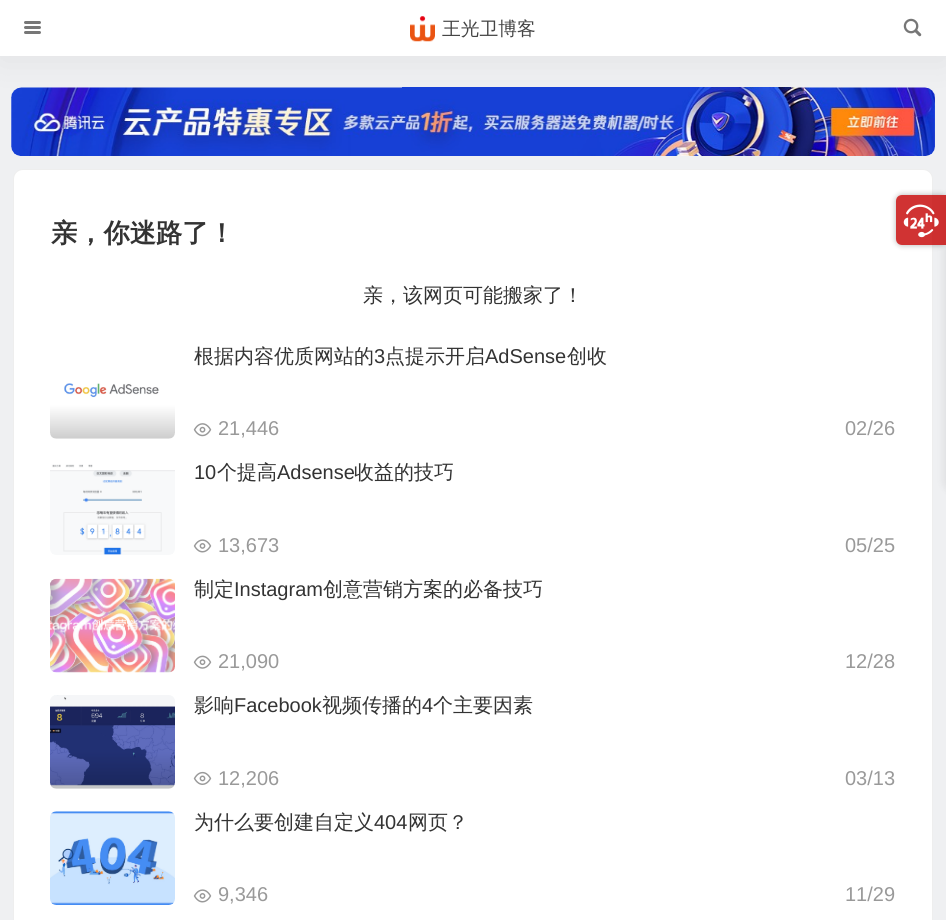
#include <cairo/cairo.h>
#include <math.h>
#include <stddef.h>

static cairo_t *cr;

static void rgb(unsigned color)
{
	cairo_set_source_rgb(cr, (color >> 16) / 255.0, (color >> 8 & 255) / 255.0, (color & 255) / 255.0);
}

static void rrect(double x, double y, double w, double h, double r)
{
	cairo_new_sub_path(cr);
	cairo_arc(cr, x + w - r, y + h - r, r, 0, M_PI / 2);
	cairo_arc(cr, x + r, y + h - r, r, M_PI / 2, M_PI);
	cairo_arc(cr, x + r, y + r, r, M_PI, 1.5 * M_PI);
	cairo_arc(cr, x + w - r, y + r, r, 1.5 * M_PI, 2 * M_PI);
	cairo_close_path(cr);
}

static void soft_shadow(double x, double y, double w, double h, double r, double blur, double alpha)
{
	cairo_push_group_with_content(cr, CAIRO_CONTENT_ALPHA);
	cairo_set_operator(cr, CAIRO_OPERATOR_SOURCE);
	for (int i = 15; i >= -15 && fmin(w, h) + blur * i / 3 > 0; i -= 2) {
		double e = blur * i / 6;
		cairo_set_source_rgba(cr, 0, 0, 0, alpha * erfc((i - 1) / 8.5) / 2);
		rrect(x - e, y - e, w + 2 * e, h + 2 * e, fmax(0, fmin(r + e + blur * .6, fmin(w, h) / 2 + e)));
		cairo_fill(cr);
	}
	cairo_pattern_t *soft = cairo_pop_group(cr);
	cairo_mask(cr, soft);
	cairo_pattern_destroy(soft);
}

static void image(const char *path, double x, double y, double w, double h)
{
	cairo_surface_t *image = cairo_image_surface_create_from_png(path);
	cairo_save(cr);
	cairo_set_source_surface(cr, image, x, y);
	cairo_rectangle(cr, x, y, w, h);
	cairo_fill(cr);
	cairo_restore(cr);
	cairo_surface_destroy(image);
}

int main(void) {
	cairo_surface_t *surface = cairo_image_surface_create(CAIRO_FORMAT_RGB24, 946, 920);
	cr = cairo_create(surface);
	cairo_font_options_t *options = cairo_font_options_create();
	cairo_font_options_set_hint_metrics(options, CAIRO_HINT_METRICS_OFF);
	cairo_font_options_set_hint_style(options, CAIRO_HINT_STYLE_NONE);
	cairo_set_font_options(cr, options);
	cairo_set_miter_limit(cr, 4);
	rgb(0xeff0f2);
	cairo_paint(cr);
	rgb(0xffffff);
	rrect(11, 88, 924, 68, 10);
	cairo_fill(cr);
	image("img/3.png", 11, 87, 924, 69);
	rgb(0x000000);
	soft_shadow(0, 4, 946, 56, 0, 19, 0.06);
	rgb(0xffffff);
	cairo_rectangle(cr, 0, 0, 946, 56);
	cairo_fill(cr);
	rgb(0x777777);
	rrect(24, 26, 17, 3, 1.5);
	cairo_fill(cr);
	rrect(24, 21, 17, 3, 1.5);
	cairo_fill(cr);
	rrect(24, 31, 17, 3, 1.5);
	cairo_fill(cr);
	image("img/1.png", 903, 18, 19, 19);
	image("img/2.png", 410, 16, 25, 26);
	rgb(0xffffff);
	rrect(13, 169, 920, 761, 10);
	cairo_fill(cr);
	rrect(13.5, 169.5, 919, 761, 9.5);
	cairo_set_source_rgba(cr, 0, 0, 0, 0.07);
	cairo_set_line_width(cr, 1);
	cairo_stroke(cr);
	image("img/4.png", 50, 383, 125, 56);
	image("img/5.png", 193, 423, 19, 14);
	image("img/6.png", 50, 464, 125, 91);
	image("img/7.png", 193, 539, 19, 14);
	image("img/8.png", 50, 578, 125, 95);
	image("img/9.png", 193, 655, 19, 14);
	image("img/10.png", 50, 695, 125, 94);
	image("img/11.png", 193, 771, 19, 14);
	image("img/12.png", 50, 811, 125, 94);
	image("img/7.png", 193, 889, 19, 14);
	rgb(0x000000);
	soft_shadow(943, 191, 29, 302, 14, 4, 0.07);
	cairo_save(cr);
	cairo_set_fill_rule(cr, CAIRO_FILL_RULE_EVEN_ODD);
	cairo_new_path(cr);
	cairo_move_to(cr, 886, 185);
	cairo_line_to(cr, 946, 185);
	cairo_line_to(cr, 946, 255);
	cairo_line_to(cr, 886, 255);
	cairo_close_path(cr);
	cairo_move_to(cr, 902, 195);
	cairo_line_to(cr, 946, 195);
	cairo_line_to(cr, 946, 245);
	cairo_line_to(cr, 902, 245);
	cairo_curve_to(cr, 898.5, 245, 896, 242.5, 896, 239);
	cairo_line_to(cr, 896, 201);
	cairo_curve_to(cr, 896, 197.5, 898.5, 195, 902, 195);
	cairo_close_path(cr);
	cairo_clip(cr);
	soft_shadow(896, 195, 50, 50, 6, 3, 0.3);
	cairo_restore(cr);
	cairo_set_source_rgba(cr, 0.769, 0, 0, 0.8);
	cairo_new_path(cr);
	cairo_move_to(cr, 902, 195);
	cairo_line_to(cr, 946, 195);
	cairo_line_to(cr, 946, 245);
	cairo_line_to(cr, 902, 245);
	cairo_curve_to(cr, 898.5, 245, 896, 242.5, 896, 239);
	cairo_line_to(cr, 896, 201);
	cairo_curve_to(cr, 896, 197.5, 898.5, 195, 902, 195);
	cairo_close_path(cr);
	cairo_fill(cr);
	image("img/13.png", 903, 204, 36, 34);
	cairo_select_font_face(cr, "WenQuanYi Zen Hei Medium", CAIRO_FONT_SLANT_NORMAL, CAIRO_FONT_WEIGHT_NORMAL);
	cairo_set_font_size(cr, 18.75);
	rgb(0x444444);
	cairo_move_to(cr, 442, 35);
	cairo_show_text(cr, "王光卫博客");
	cairo_select_font_face(cr, "WenQuanYi Zen Hei", CAIRO_FONT_SLANT_NORMAL, CAIRO_FONT_WEIGHT_BOLD);
	cairo_set_font_size(cr, 26.25);
	rgb(0x333333);
	cairo_move_to(cr, 51, 242);
	cairo_show_text(cr, "亲，你迷路了！");
	cairo_select_font_face(cr, "WenQuanYi Zen Hei Medium", CAIRO_FONT_SLANT_NORMAL, CAIRO_FONT_WEIGHT_NORMAL);
	cairo_set_font_size(cr, 20);
	cairo_move_to(cr, 363, 302);
	cairo_show_text(cr, "亲，该网页可能搬家了！");
	cairo_move_to(cr, 194, 363);
	cairo_show_text(cr, "根据内容优质网站的");
	cairo_select_font_face(cr, "Liberation Sans", CAIRO_FONT_SLANT_NORMAL, CAIRO_FONT_WEIGHT_NORMAL);
	cairo_move_to(cr, 374, 363);
	cairo_show_text(cr, "3");
	cairo_select_font_face(cr, "WenQuanYi Zen Hei Medium", CAIRO_FONT_SLANT_NORMAL, CAIRO_FONT_WEIGHT_NORMAL);
	cairo_move_to(cr, 385, 363);
	cairo_show_text(cr, "点提示开启");
	cairo_select_font_face(cr, "Liberation Sans", CAIRO_FONT_SLANT_NORMAL, CAIRO_FONT_WEIGHT_NORMAL);
	cairo_move_to(cr, 485, 363);
	cairo_show_text(cr, "AdSense");
	cairo_select_font_face(cr, "WenQuanYi Zen Hei Medium", CAIRO_FONT_SLANT_NORMAL, CAIRO_FONT_WEIGHT_NORMAL);
	cairo_move_to(cr, 567, 363);
	cairo_show_text(cr, "创收");
	cairo_select_font_face(cr, "Liberation Sans", CAIRO_FONT_SLANT_NORMAL, CAIRO_FONT_WEIGHT_NORMAL);
	rgb(0x999999);
	cairo_move_to(cr, 218, 435);
	cairo_show_text(cr, "21,446");
	cairo_move_to(cr, 845, 435);
	cairo_show_text(cr, "02/26");
	rgb(0x333333);
	cairo_move_to(cr, 194, 479);
	cairo_show_text(cr, "10");
	cairo_select_font_face(cr, "WenQuanYi Zen Hei Medium", CAIRO_FONT_SLANT_NORMAL, CAIRO_FONT_WEIGHT_NORMAL);
	cairo_move_to(cr, 217, 479);
	cairo_show_text(cr, "个提高");
	cairo_select_font_face(cr, "Liberation Sans", CAIRO_FONT_SLANT_NORMAL, CAIRO_FONT_WEIGHT_NORMAL);
	cairo_move_to(cr, 277, 479);
	cairo_show_text(cr, "Adsense");
	cairo_select_font_face(cr, "WenQuanYi Zen Hei Medium", CAIRO_FONT_SLANT_NORMAL, CAIRO_FONT_WEIGHT_NORMAL);
	cairo_move_to(cr, 354, 479);
	cairo_show_text(cr, "收益的技巧");
	cairo_select_font_face(cr, "Liberation Sans", CAIRO_FONT_SLANT_NORMAL, CAIRO_FONT_WEIGHT_NORMAL);
	rgb(0x999999);
	cairo_move_to(cr, 845, 552);
	cairo_show_text(cr, "05/25");
	cairo_move_to(cr, 218, 552);
	cairo_show_text(cr, "13,673");
	cairo_select_font_face(cr, "WenQuanYi Zen Hei Medium", CAIRO_FONT_SLANT_NORMAL, CAIRO_FONT_WEIGHT_NORMAL);
	rgb(0x333333);
	cairo_move_to(cr, 194, 596);
	cairo_show_text(cr, "制定");
	cairo_select_font_face(cr, "Liberation Sans", CAIRO_FONT_SLANT_NORMAL, CAIRO_FONT_WEIGHT_NORMAL);
	cairo_move_to(cr, 234, 596);
	cairo_show_text(cr, "Instagram");
	cairo_select_font_face(cr, "WenQuanYi Zen Hei Medium", CAIRO_FONT_SLANT_NORMAL, CAIRO_FONT_WEIGHT_NORMAL);
	cairo_move_to(cr, 323, 596);
	cairo_show_text(cr, "创意营销方案的必备技巧");
	cairo_select_font_face(cr, "Liberation Sans", CAIRO_FONT_SLANT_NORMAL, CAIRO_FONT_WEIGHT_NORMAL);
	rgb(0x999999);
	cairo_move_to(cr, 218, 668);
	cairo_show_text(cr, "21,090");
	cairo_move_to(cr, 845, 668);
	cairo_show_text(cr, "12/28");
	cairo_select_font_face(cr, "WenQuanYi Zen Hei Medium", CAIRO_FONT_SLANT_NORMAL, CAIRO_FONT_WEIGHT_NORMAL);
	rgb(0x333333);
	cairo_move_to(cr, 194, 712);
	cairo_show_text(cr, "影响");
	cairo_select_font_face(cr, "Liberation Sans", CAIRO_FONT_SLANT_NORMAL, CAIRO_FONT_WEIGHT_NORMAL);
	cairo_move_to(cr, 234, 712);
	cairo_show_text(cr, "Facebook");
	cairo_select_font_face(cr, "WenQuanYi Zen Hei Medium", CAIRO_FONT_SLANT_NORMAL, CAIRO_FONT_WEIGHT_NORMAL);
	cairo_move_to(cr, 322, 712);
	cairo_show_text(cr, "视频传播的");
	cairo_select_font_face(cr, "Liberation Sans", CAIRO_FONT_SLANT_NORMAL, CAIRO_FONT_WEIGHT_NORMAL);
	cairo_move_to(cr, 422, 712);
	cairo_show_text(cr, "4");
	cairo_select_font_face(cr, "WenQuanYi Zen Hei Medium", CAIRO_FONT_SLANT_NORMAL, CAIRO_FONT_WEIGHT_NORMAL);
	cairo_move_to(cr, 433, 712);
	cairo_show_text(cr, "个主要因素");
	cairo_select_font_face(cr, "Liberation Sans", CAIRO_FONT_SLANT_NORMAL, CAIRO_FONT_WEIGHT_NORMAL);
	rgb(0x999999);
	cairo_move_to(cr, 218, 785);
	cairo_show_text(cr, "12,206");
	cairo_move_to(cr, 845, 785);
	cairo_show_text(cr, "03/13");
	cairo_select_font_face(cr, "WenQuanYi Zen Hei Medium", CAIRO_FONT_SLANT_NORMAL, CAIRO_FONT_WEIGHT_NORMAL);
	rgb(0x333333);
	cairo_move_to(cr, 194, 829);
	cairo_show_text(cr, "为什么要创建自定义");
	cairo_select_font_face(cr, "Liberation Sans", CAIRO_FONT_SLANT_NORMAL, CAIRO_FONT_WEIGHT_NORMAL);
	cairo_move_to(cr, 374, 829);
	cairo_show_text(cr, "404");
	cairo_select_font_face(cr, "WenQuanYi Zen Hei Medium", CAIRO_FONT_SLANT_NORMAL, CAIRO_FONT_WEIGHT_NORMAL);
	cairo_move_to(cr, 408, 829);
	cairo_show_text(cr, "网页？");
	cairo_select_font_face(cr, "Liberation Sans", CAIRO_FONT_SLANT_NORMAL, CAIRO_FONT_WEIGHT_NORMAL);
	rgb(0x999999);
	cairo_move_to(cr, 218, 901);
	cairo_show_text(cr, "9,346");
	cairo_move_to(cr, 845, 901);
	cairo_show_text(cr, "11/29");
	cairo_surface_write_to_png(surface, "page.png");
	cairo_font_options_destroy(options);
	cairo_destroy(cr);
	cairo_surface_destroy(surface);
	return 0;
}
